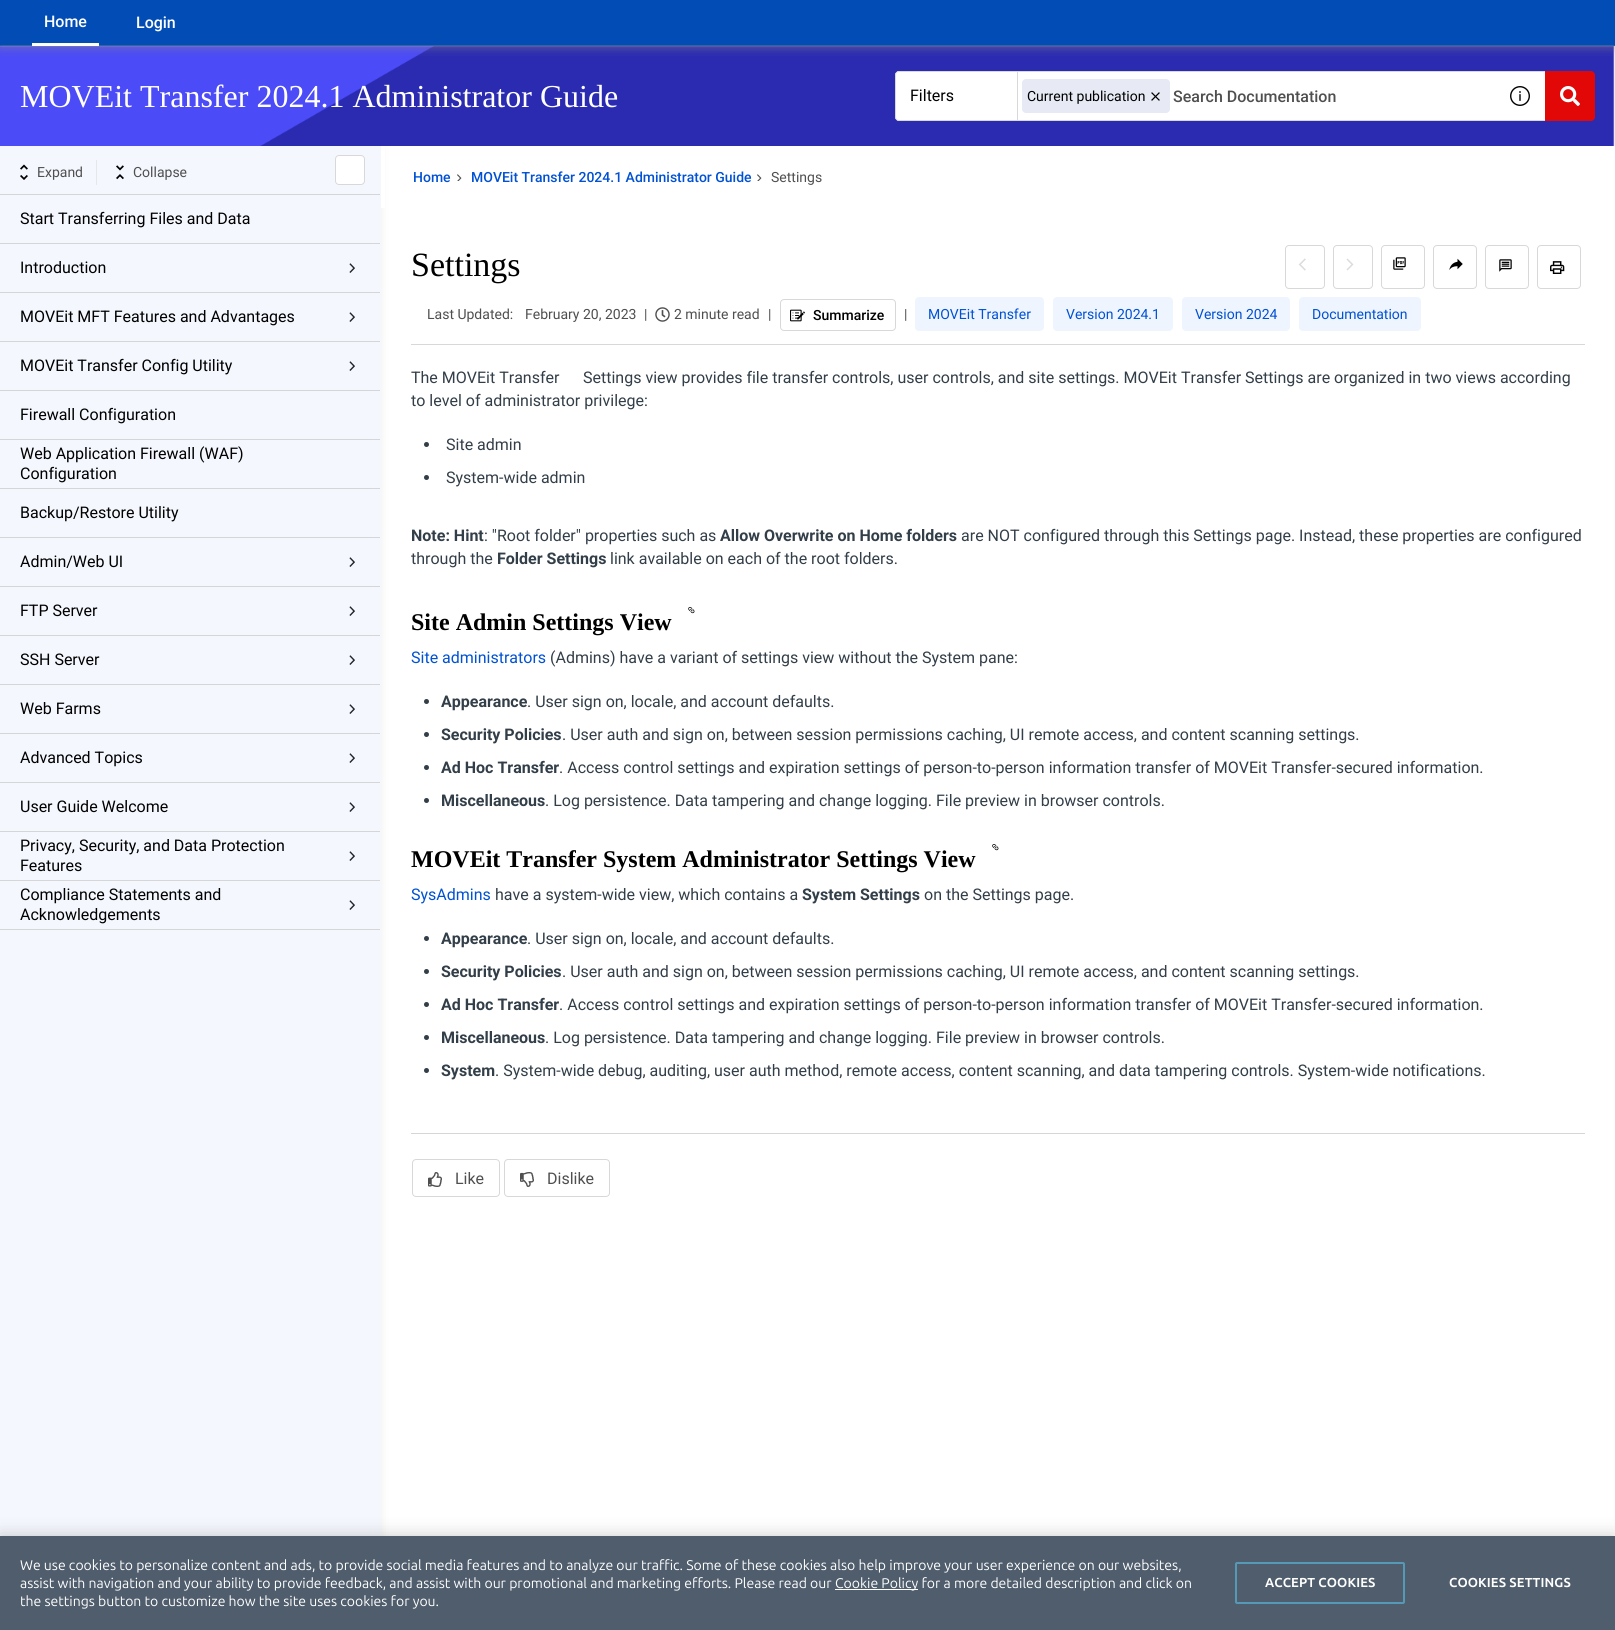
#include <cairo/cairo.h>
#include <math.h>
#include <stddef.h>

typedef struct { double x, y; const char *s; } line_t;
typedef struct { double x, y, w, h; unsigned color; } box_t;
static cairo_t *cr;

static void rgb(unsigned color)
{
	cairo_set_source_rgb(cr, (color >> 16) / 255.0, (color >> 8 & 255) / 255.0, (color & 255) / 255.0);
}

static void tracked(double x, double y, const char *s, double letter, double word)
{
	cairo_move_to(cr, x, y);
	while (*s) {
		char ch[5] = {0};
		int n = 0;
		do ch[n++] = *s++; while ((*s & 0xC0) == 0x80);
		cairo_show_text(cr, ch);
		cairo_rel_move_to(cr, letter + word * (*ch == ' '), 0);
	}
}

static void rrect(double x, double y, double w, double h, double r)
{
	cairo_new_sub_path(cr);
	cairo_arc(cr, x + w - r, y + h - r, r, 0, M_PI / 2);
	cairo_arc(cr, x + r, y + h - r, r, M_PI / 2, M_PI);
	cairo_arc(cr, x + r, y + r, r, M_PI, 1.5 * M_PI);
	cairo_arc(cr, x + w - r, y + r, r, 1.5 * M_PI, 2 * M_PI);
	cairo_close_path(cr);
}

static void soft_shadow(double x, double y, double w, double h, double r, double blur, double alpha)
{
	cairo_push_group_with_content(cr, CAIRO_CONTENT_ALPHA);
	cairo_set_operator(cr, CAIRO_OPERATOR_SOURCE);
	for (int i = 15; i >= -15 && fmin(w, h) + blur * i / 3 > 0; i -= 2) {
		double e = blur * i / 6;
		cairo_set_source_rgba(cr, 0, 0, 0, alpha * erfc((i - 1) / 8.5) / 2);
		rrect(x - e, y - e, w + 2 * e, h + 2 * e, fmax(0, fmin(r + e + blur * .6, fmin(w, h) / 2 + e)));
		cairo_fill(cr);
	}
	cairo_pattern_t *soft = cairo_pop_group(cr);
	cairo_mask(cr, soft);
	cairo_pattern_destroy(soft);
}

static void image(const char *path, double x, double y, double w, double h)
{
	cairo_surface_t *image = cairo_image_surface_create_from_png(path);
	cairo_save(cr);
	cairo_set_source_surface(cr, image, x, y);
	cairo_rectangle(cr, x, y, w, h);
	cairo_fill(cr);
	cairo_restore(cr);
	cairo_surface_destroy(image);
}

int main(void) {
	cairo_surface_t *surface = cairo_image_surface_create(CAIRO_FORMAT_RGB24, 1615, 1630);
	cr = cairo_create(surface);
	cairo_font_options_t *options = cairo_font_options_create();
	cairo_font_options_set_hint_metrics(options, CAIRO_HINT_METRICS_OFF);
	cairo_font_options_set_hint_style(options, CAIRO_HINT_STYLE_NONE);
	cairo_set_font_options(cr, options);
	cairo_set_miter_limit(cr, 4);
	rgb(0xffffff);
	cairo_paint(cr);
	rgb(0x024db5);
	cairo_rectangle(cr, 0, 0, 1615, 46);
	cairo_fill(cr);
	rgb(0xb5b7b3);
	soft_shadow(0, 148, 381, 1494, 0, 4, 0.25);
	image("img/1.png", 0, 46, 1615, 100);
	cairo_save(cr);
	cairo_rectangle(cr, 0, 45, 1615, 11);
	cairo_clip(cr);
	rgb(0x838486);
	soft_shadow(0, 2, 1615, 45, 0, 5, 0.62);
	cairo_restore(cr);
	rgb(0xffffff);
	cairo_rectangle(cr, 32, 43, 67, 3);
	cairo_fill(cr);
	cairo_new_path(cr);
	cairo_move_to(cr, 899, 71);
	cairo_line_to(cr, 1017, 71);
	cairo_line_to(cr, 1017, 121);
	cairo_line_to(cr, 899, 121);
	cairo_curve_to(cr, 897, 121, 895, 119, 895, 117);
	cairo_line_to(cr, 895, 75);
	cairo_curve_to(cr, 895, 73, 897, 71, 899, 71);
	cairo_close_path(cr);
	cairo_fill(cr);
	rgb(0xd8d8d8);
	cairo_set_fill_rule(cr, CAIRO_FILL_RULE_EVEN_ODD);
	cairo_new_path(cr);
	cairo_move_to(cr, 899, 71);
	cairo_line_to(cr, 1017, 71);
	cairo_line_to(cr, 1017, 121);
	cairo_line_to(cr, 899, 121);
	cairo_curve_to(cr, 897, 121, 895, 119, 895, 117);
	cairo_line_to(cr, 895, 75);
	cairo_curve_to(cr, 895, 73, 897, 71, 899, 71);
	cairo_close_path(cr);
	cairo_move_to(cr, 899, 72);
	cairo_line_to(cr, 1017, 72);
	cairo_line_to(cr, 1017, 120);
	cairo_line_to(cr, 899, 120);
	cairo_curve_to(cr, 897, 120, 896, 119, 896, 117);
	cairo_line_to(cr, 896, 75);
	cairo_curve_to(cr, 896, 73, 897, 72, 899, 72);
	cairo_close_path(cr);
	cairo_fill(cr);
	{
		static const box_t items[] = {
			{1018, 72, 527, 48, 0xffffff},
			{1017, 71, 528, 1, 0xd8d8d8},
			{1017, 120, 528, 1, 0xd8d8d8},
		};
		for (size_t i = 0; i < sizeof items / sizeof *items; i++) {
			rgb(items[i].color);
			cairo_rectangle(cr, items[i].x, items[i].y, items[i].w, items[i].h);
			cairo_fill(cr);
		}
	}
	image("img/2.png", 1510, 86, 20, 20);
	rgb(0xe30808);
	cairo_new_path(cr);
	cairo_move_to(cr, 1545, 71);
	cairo_line_to(cr, 1591, 71);
	cairo_curve_to(cr, 1593, 71, 1595, 73, 1595, 75);
	cairo_line_to(cr, 1595, 117);
	cairo_curve_to(cr, 1595, 119, 1593, 121, 1591, 121);
	cairo_line_to(cr, 1545, 121);
	cairo_close_path(cr);
	cairo_fill(cr);
	image("img/3.png", 1560, 86, 20, 20);
	rgb(0xe7eaf4);
	rrect(1022, 79, 148, 34, 4);
	cairo_fill(cr);
	image("img/4.png", 1151, 92, 9, 9);
	{
		static const box_t items[] = {
			{1017, 71, 1, 50, 0xd8d8d8},
			{0, 146, 381, 1390, 0xf4f7fd},
			{0, 194, 380, 1, 0xd6d6d6},
		};
		for (size_t i = 0; i < sizeof items / sizeof *items; i++) {
			rgb(items[i].color);
			cairo_rectangle(cr, items[i].x, items[i].y, items[i].w, items[i].h);
			cairo_fill(cr);
		}
	}
	image("img/5.png", 20, 164, 8, 16);
	rgb(0xe5e7ea);
	cairo_rectangle(cr, 96, 160, 1, 25);
	cairo_fill(cr);
	image("img/6.png", 116, 165, 8, 15);
	rgb(0xffffff);
	rrect(335.5, 155.5, 29, 29, 3.5);
	cairo_fill_preserve(cr);
	rgb(0xd8d8d8);
	cairo_set_line_width(cr, 1);
	cairo_stroke(cr);
	rgb(0xd6d6d6);
	cairo_rectangle(cr, 0, 243, 380, 1);
	cairo_fill(cr);
	cairo_rectangle(cr, 0, 292, 380, 1);
	cairo_fill(cr);
	image("img/7.png", 349, 263, 6, 10);
	cairo_rectangle(cr, 0, 341, 380, 1);
	cairo_fill(cr);
	image("img/7.png", 349, 312, 6, 10);
	cairo_rectangle(cr, 0, 390, 380, 1);
	cairo_fill(cr);
	image("img/7.png", 349, 361, 6, 10);
	{
		static const box_t items[] = {
			{0, 439, 380, 1, 0xd6d6d6},
			{0, 488, 380, 1, 0xd6d6d6},
			{0, 537, 380, 1, 0xd6d6d6},
			{0, 586, 380, 1, 0xd6d6d6},
		};
		for (size_t i = 0; i < sizeof items / sizeof *items; i++) {
			rgb(items[i].color);
			cairo_rectangle(cr, items[i].x, items[i].y, items[i].w, items[i].h);
			cairo_fill(cr);
		}
	}
	image("img/7.png", 349, 557, 6, 10);
	cairo_rectangle(cr, 0, 635, 380, 1);
	cairo_fill(cr);
	image("img/7.png", 349, 606, 6, 10);
	cairo_rectangle(cr, 0, 684, 380, 1);
	cairo_fill(cr);
	image("img/7.png", 349, 655, 6, 10);
	cairo_rectangle(cr, 0, 733, 380, 1);
	cairo_fill(cr);
	image("img/7.png", 349, 704, 6, 10);
	cairo_rectangle(cr, 0, 782, 380, 1);
	cairo_fill(cr);
	image("img/7.png", 349, 753, 6, 10);
	cairo_rectangle(cr, 0, 831, 380, 1);
	cairo_fill(cr);
	image("img/7.png", 349, 802, 6, 10);
	cairo_rectangle(cr, 0, 880, 380, 1);
	cairo_fill(cr);
	image("img/7.png", 349, 851, 6, 10);
	cairo_rectangle(cr, 0, 929, 380, 1);
	cairo_fill(cr);
	image("img/7.png", 349, 900, 6, 10);
	rgb(0xffffff);
	cairo_rectangle(cr, 381, 146, 4, 62);
	cairo_fill(cr);
	image("img/8.png", 457, 174, 5, 7);
	image("img/8.png", 757, 174, 5, 7);
	rgb(0xd8d8d8);
	cairo_rectangle(cr, 411, 344, 1174, 1);
	cairo_fill(cr);
	rrect(1285.5, 245.5, 39, 43, 3.5);
	cairo_stroke(cr);
	image("img/9.png", 1298, 258, 8, 13);
	rrect(1333.5, 245.5, 39, 43, 3.5);
	cairo_stroke(cr);
	image("img/10.png", 1346, 258, 8, 13);
	rrect(1381.5, 245.5, 43, 43, 3.5);
	cairo_stroke(cr);
	image("img/11.png", 1393, 257, 13, 13);
	rrect(1433.5, 245.5, 43, 43, 3.5);
	cairo_stroke(cr);
	image("img/12.png", 1449, 258, 14, 12);
	rrect(1485.5, 245.5, 43, 43, 3.5);
	cairo_stroke(cr);
	image("img/13.png", 1499, 259, 13, 13);
	rrect(1537.5, 245.5, 43, 43, 3.5);
	cairo_stroke(cr);
	image("img/14.png", 1550, 261, 15, 13);
	image("img/15.png", 655, 307, 15, 15);
	rrect(780.5, 299.5, 115, 31, 3.5);
	cairo_stroke(cr);
	image("img/16.png", 790, 309, 15, 13);
	rgb(0xeef5ff);
	rrect(915, 297, 129, 34, 4);
	cairo_fill(cr);
	rrect(1053, 297, 120, 34, 4);
	cairo_fill(cr);
	rrect(1182, 297, 108, 34, 4);
	cairo_fill(cr);
	rrect(1299, 297, 122, 34, 4);
	cairo_fill(cr);
	rgb(0x323e48);
	cairo_arc(cr, 426.5, 444.5, 2.5, 0, 2 * M_PI);
	cairo_fill(cr);
	cairo_arc(cr, 426.5, 477.5, 2.5, 0, 2 * M_PI);
	cairo_fill(cr);
	image("img/17.png", 688, 607, 7, 7);
	cairo_arc(cr, 426.5, 701.5, 2.5, 0, 2 * M_PI);
	cairo_fill(cr);
	cairo_arc(cr, 426.5, 734.5, 2.5, 0, 2 * M_PI);
	cairo_fill(cr);
	cairo_arc(cr, 426.5, 767.5, 2.5, 0, 2 * M_PI);
	cairo_fill(cr);
	cairo_arc(cr, 426.5, 800.5, 2.5, 0, 2 * M_PI);
	cairo_fill(cr);
	image("img/18.png", 992, 844, 7, 7);
	cairo_arc(cr, 426.5, 938.5, 2.5, 0, 2 * M_PI);
	cairo_fill(cr);
	cairo_arc(cr, 426.5, 971.5, 2.5, 0, 2 * M_PI);
	cairo_fill(cr);
	cairo_arc(cr, 426.5, 1004.5, 2.5, 0, 2 * M_PI);
	cairo_fill(cr);
	cairo_arc(cr, 426.5, 1037.5, 2.5, 0, 2 * M_PI);
	cairo_fill(cr);
	cairo_arc(cr, 426.5, 1070.5, 2.5, 0, 2 * M_PI);
	cairo_fill(cr);
	rgb(0xd6d6d6);
	cairo_rectangle(cr, 411, 1133, 1174, 1);
	cairo_fill(cr);
	rrect(412.5, 1159.5, 87, 37, 3.5);
	rgb(0xd8d8d8);
	cairo_stroke(cr);
	image("img/19.png", 428, 1172, 14, 15);
	rrect(504.5, 1159.5, 105, 37, 3.5);
	cairo_stroke(cr);
	image("img/20.png", 520, 1172, 14, 15);
	rgb(0x000000);
	soft_shadow(0, 1536, 1615, 94, 0, 9, 0.2);
	rgb(0x4f5d6c);
	cairo_rectangle(cr, 0, 1536, 1615, 94);
	cairo_fill(cr);
	rgb(0xffffff);
	cairo_rectangle(cr, 835, 1589, 83, 1);
	cairo_fill(cr);
	rrect(1236, 1563, 168, 40, 1);
	rgb(0x5699b6);
	cairo_set_line_width(cr, 2);
	cairo_stroke(cr);
	cairo_select_font_face(cr, "Roboto Medium", CAIRO_FONT_SLANT_NORMAL, CAIRO_FONT_WEIGHT_NORMAL);
	cairo_set_font_size(cr, 16);
	rgb(0xffffff);
	cairo_move_to(cr, 44, 27);
	cairo_show_text(cr, "Home");
	cairo_move_to(cr, 136, 28);
	cairo_show_text(cr, "Login");
	cairo_select_font_face(cr, "Liberation Serif", CAIRO_FONT_SLANT_NORMAL, CAIRO_FONT_WEIGHT_NORMAL);
	cairo_set_font_size(cr, 32);
	cairo_move_to(cr, 20, 107);
	cairo_show_text(cr, "MOVEit Transfer 2024.1 Administrator Guide");
	cairo_select_font_face(cr, "Roboto", CAIRO_FONT_SLANT_NORMAL, CAIRO_FONT_WEIGHT_NORMAL);
	cairo_set_font_size(cr, 16);
	rgb(0x000000);
	cairo_move_to(cr, 910, 101);
	cairo_show_text(cr, "Filters");
	cairo_set_font_size(cr, 14);
	cairo_move_to(cr, 1027, 101);
	cairo_show_text(cr, "Current publication");
	cairo_select_font_face(cr, "Roboto Medium", CAIRO_FONT_SLANT_NORMAL, CAIRO_FONT_WEIGHT_NORMAL);
	cairo_set_font_size(cr, 16);
	rgb(0x4f4f4f);
	cairo_move_to(cr, 1173, 102);
	cairo_show_text(cr, "Search Documentation");
	cairo_select_font_face(cr, "Roboto", CAIRO_FONT_SLANT_NORMAL, CAIRO_FONT_WEIGHT_NORMAL);
	cairo_set_font_size(cr, 14);
	cairo_move_to(cr, 37, 177);
	cairo_show_text(cr, "Expand");
	cairo_move_to(cr, 133, 177);
	cairo_show_text(cr, "Collapse");
	cairo_set_font_size(cr, 16);
	rgb(0x000000);
	{
		static const line_t items[] = {
			{20, 224, "Start Transferring Files and Data"},
			{20, 273, "Introduction"},
			{20, 322, "MOVEit MFT Features and Advantages"},
			{20, 371, "MOVEit Transfer Config Utility"},
			{20, 420, "Firewall Configuration"},
			{20, 459, "Web Application Firewall (WAF)"},
			{20, 479, "Configuration"},
			{20, 518, "Backup/Restore Utility"},
			{20, 567, "Admin/Web UI"},
			{20, 616, "FTP Server"},
			{20, 665, "SSH Server"},
			{20, 714, "Web Farms"},
			{20, 763, "Advanced Topics"},
			{20, 812, "User Guide Welcome"},
			{20, 851, "Privacy, Security, and Data Protection"},
			{20, 871, "Features"},
			{20, 900, "Compliance Statements and"},
			{20, 920, "Acknowledgements"},
		};
		for (size_t i = 0; i < sizeof items / sizeof *items; i++) {
			cairo_move_to(cr, items[i].x, items[i].y);
			cairo_show_text(cr, items[i].s);
		}
	}
	cairo_select_font_face(cr, "Roboto Medium", CAIRO_FONT_SLANT_NORMAL, CAIRO_FONT_WEIGHT_NORMAL);
	cairo_set_font_size(cr, 14);
	rgb(0x0051d3);
	cairo_move_to(cr, 413, 182);
	cairo_show_text(cr, "Home");
	cairo_move_to(cr, 471, 182);
	cairo_show_text(cr, "MOVEit Transfer 2024.1 Administrator Guide");
	cairo_select_font_face(cr, "Roboto", CAIRO_FONT_SLANT_NORMAL, CAIRO_FONT_WEIGHT_NORMAL);
	rgb(0x4f4f4f);
	cairo_move_to(cr, 771, 182);
	cairo_show_text(cr, "Settings");
	cairo_select_font_face(cr, "Liberation Serif", CAIRO_FONT_SLANT_NORMAL, CAIRO_FONT_WEIGHT_NORMAL);
	cairo_set_font_size(cr, 34);
	rgb(0x000000);
	cairo_move_to(cr, 411, 276);
	cairo_show_text(cr, "Settings");
	cairo_select_font_face(cr, "Roboto", CAIRO_FONT_SLANT_NORMAL, CAIRO_FONT_WEIGHT_NORMAL);
	cairo_set_font_size(cr, 14);
	rgb(0x4f4f4f);
	{
		static const line_t items[] = {
			{427, 319, "Last Updated:"},
			{525, 319, "February 20, 2023"},
			{644, 319, "|"},
			{674, 319, "2 minute read"},
			{768, 319, "|"},
		};
		for (size_t i = 0; i < sizeof items / sizeof *items; i++) {
			cairo_move_to(cr, items[i].x, items[i].y);
			cairo_show_text(cr, items[i].s);
		}
	}
	cairo_select_font_face(cr, "Roboto Medium", CAIRO_FONT_SLANT_NORMAL, CAIRO_FONT_WEIGHT_NORMAL);
	rgb(0x000000);
	cairo_move_to(cr, 813, 320);
	cairo_show_text(cr, "Summarize");
	cairo_select_font_face(cr, "Roboto", CAIRO_FONT_SLANT_NORMAL, CAIRO_FONT_WEIGHT_NORMAL);
	rgb(0x4f4f4f);
	cairo_move_to(cr, 904, 319);
	cairo_show_text(cr, "|");
	rgb(0x0051d3);
	{
		static const line_t items[] = {
			{928, 319, "MOVEit Transfer"},
			{1066, 319, "Version 2024.1"},
			{1195, 319, "Version 2024"},
			{1312, 319, "Documentation"},
		};
		for (size_t i = 0; i < sizeof items / sizeof *items; i++) {
			cairo_move_to(cr, items[i].x, items[i].y);
			cairo_show_text(cr, items[i].s);
		}
	}
	cairo_set_font_size(cr, 16);
	rgb(0x323e48);
	{
		static const line_t items[] = {
			{411, 383, "The MOVEit Transfer"},
			{583, 383, "Settings view provides file transfer controls, user controls, and site settings. MOVEit Transfer Settings are organized in two views according"},
			{411, 406, "to level of administrator privilege:"},
			{446, 450, "Site admin"},
			{446, 483, "System-wide admin"},
		};
		for (size_t i = 0; i < sizeof items / sizeof *items; i++) {
			cairo_move_to(cr, items[i].x, items[i].y);
			cairo_show_text(cr, items[i].s);
		}
	}
	cairo_select_font_face(cr, "Roboto", CAIRO_FONT_SLANT_NORMAL, CAIRO_FONT_WEIGHT_BOLD);
	cairo_move_to(cr, 411, 541);
	cairo_show_text(cr, "Note: Hint");
	cairo_select_font_face(cr, "Roboto", CAIRO_FONT_SLANT_NORMAL, CAIRO_FONT_WEIGHT_NORMAL);
	cairo_move_to(cr, 484, 541);
	cairo_show_text(cr, ": \"Root folder\" properties such as");
	cairo_select_font_face(cr, "Roboto", CAIRO_FONT_SLANT_NORMAL, CAIRO_FONT_WEIGHT_BOLD);
	cairo_move_to(cr, 720, 541);
	cairo_show_text(cr, "Allow Overwrite on Home folders");
	cairo_select_font_face(cr, "Roboto", CAIRO_FONT_SLANT_NORMAL, CAIRO_FONT_WEIGHT_NORMAL);
	cairo_move_to(cr, 961, 541);
	cairo_show_text(cr, "are NOT configured through this Settings page. Instead, these properties are configured");
	cairo_move_to(cr, 411, 564);
	cairo_show_text(cr, "through the");
	cairo_select_font_face(cr, "Roboto", CAIRO_FONT_SLANT_NORMAL, CAIRO_FONT_WEIGHT_BOLD);
	cairo_move_to(cr, 497, 564);
	cairo_show_text(cr, "Folder Settings");
	cairo_select_font_face(cr, "Roboto", CAIRO_FONT_SLANT_NORMAL, CAIRO_FONT_WEIGHT_NORMAL);
	cairo_move_to(cr, 610, 564);
	cairo_show_text(cr, "link available on each of the root folders.");
	cairo_select_font_face(cr, "Liberation Serif", CAIRO_FONT_SLANT_NORMAL, CAIRO_FONT_WEIGHT_BOLD);
	cairo_set_font_size(cr, 24);
	rgb(0x000000);
	cairo_move_to(cr, 411, 630);
	cairo_show_text(cr, "Site Admin Settings View");
	cairo_select_font_face(cr, "Roboto", CAIRO_FONT_SLANT_NORMAL, CAIRO_FONT_WEIGHT_NORMAL);
	cairo_set_font_size(cr, 16);
	rgb(0x0051d3);
	cairo_move_to(cr, 411, 663);
	cairo_show_text(cr, "Site administrators");
	rgb(0x323e48);
	cairo_move_to(cr, 550, 663);
	cairo_show_text(cr, "(Admins) have a variant of settings view without the System pane:");
	cairo_select_font_face(cr, "Roboto", CAIRO_FONT_SLANT_NORMAL, CAIRO_FONT_WEIGHT_BOLD);
	cairo_move_to(cr, 441, 707);
	cairo_show_text(cr, "Appearance");
	cairo_select_font_face(cr, "Roboto", CAIRO_FONT_SLANT_NORMAL, CAIRO_FONT_WEIGHT_NORMAL);
	cairo_move_to(cr, 527, 707);
	cairo_show_text(cr, ". User sign on, locale, and account defaults.");
	cairo_select_font_face(cr, "Roboto", CAIRO_FONT_SLANT_NORMAL, CAIRO_FONT_WEIGHT_BOLD);
	cairo_move_to(cr, 441, 740);
	cairo_show_text(cr, "Security Policies");
	cairo_select_font_face(cr, "Roboto", CAIRO_FONT_SLANT_NORMAL, CAIRO_FONT_WEIGHT_NORMAL);
	cairo_move_to(cr, 562, 740);
	cairo_show_text(cr, ". User auth and sign on, between session permissions caching, UI remote access, and content scanning settings.");
	cairo_select_font_face(cr, "Roboto", CAIRO_FONT_SLANT_NORMAL, CAIRO_FONT_WEIGHT_BOLD);
	cairo_move_to(cr, 441, 773);
	cairo_show_text(cr, "Ad Hoc Transfer");
	cairo_select_font_face(cr, "Roboto", CAIRO_FONT_SLANT_NORMAL, CAIRO_FONT_WEIGHT_NORMAL);
	cairo_move_to(cr, 559, 773);
	cairo_show_text(cr, ". Access control settings and expiration settings of person-to-person information transfer of MOVEit Transfer-secured information.");
	cairo_select_font_face(cr, "Roboto", CAIRO_FONT_SLANT_NORMAL, CAIRO_FONT_WEIGHT_BOLD);
	cairo_move_to(cr, 441, 806);
	cairo_show_text(cr, "Miscellaneous");
	cairo_select_font_face(cr, "Roboto", CAIRO_FONT_SLANT_NORMAL, CAIRO_FONT_WEIGHT_NORMAL);
	cairo_move_to(cr, 545, 806);
	cairo_show_text(cr, ". Log persistence. Data tampering and change logging. File preview in browser controls.");
	cairo_select_font_face(cr, "Liberation Serif", CAIRO_FONT_SLANT_NORMAL, CAIRO_FONT_WEIGHT_BOLD);
	cairo_set_font_size(cr, 24);
	rgb(0x000000);
	cairo_move_to(cr, 411, 867);
	cairo_show_text(cr, "MOVEit Transfer System Administrator Settings View");
	cairo_select_font_face(cr, "Roboto", CAIRO_FONT_SLANT_NORMAL, CAIRO_FONT_WEIGHT_NORMAL);
	cairo_set_font_size(cr, 16);
	rgb(0x0051d3);
	cairo_move_to(cr, 411, 900);
	cairo_show_text(cr, "SysAdmins");
	rgb(0x323e48);
	cairo_move_to(cr, 495, 900);
	cairo_show_text(cr, "have a system-wide view, which contains a");
	cairo_select_font_face(cr, "Roboto", CAIRO_FONT_SLANT_NORMAL, CAIRO_FONT_WEIGHT_BOLD);
	cairo_move_to(cr, 802, 900);
	cairo_show_text(cr, "System Settings");
	cairo_select_font_face(cr, "Roboto", CAIRO_FONT_SLANT_NORMAL, CAIRO_FONT_WEIGHT_NORMAL);
	cairo_move_to(cr, 924, 900);
	cairo_show_text(cr, "on the Settings page.");
	cairo_select_font_face(cr, "Roboto", CAIRO_FONT_SLANT_NORMAL, CAIRO_FONT_WEIGHT_BOLD);
	cairo_move_to(cr, 441, 944);
	cairo_show_text(cr, "Appearance");
	cairo_select_font_face(cr, "Roboto", CAIRO_FONT_SLANT_NORMAL, CAIRO_FONT_WEIGHT_NORMAL);
	cairo_move_to(cr, 527, 944);
	cairo_show_text(cr, ". User sign on, locale, and account defaults.");
	cairo_select_font_face(cr, "Roboto", CAIRO_FONT_SLANT_NORMAL, CAIRO_FONT_WEIGHT_BOLD);
	cairo_move_to(cr, 441, 977);
	cairo_show_text(cr, "Security Policies");
	cairo_select_font_face(cr, "Roboto", CAIRO_FONT_SLANT_NORMAL, CAIRO_FONT_WEIGHT_NORMAL);
	cairo_move_to(cr, 562, 977);
	cairo_show_text(cr, ". User auth and sign on, between session permissions caching, UI remote access, and content scanning settings.");
	cairo_select_font_face(cr, "Roboto", CAIRO_FONT_SLANT_NORMAL, CAIRO_FONT_WEIGHT_BOLD);
	cairo_move_to(cr, 441, 1010);
	cairo_show_text(cr, "Ad Hoc Transfer");
	cairo_select_font_face(cr, "Roboto", CAIRO_FONT_SLANT_NORMAL, CAIRO_FONT_WEIGHT_NORMAL);
	cairo_move_to(cr, 559, 1010);
	cairo_show_text(cr, ". Access control settings and expiration settings of person-to-person information transfer of MOVEit Transfer-secured information.");
	cairo_select_font_face(cr, "Roboto", CAIRO_FONT_SLANT_NORMAL, CAIRO_FONT_WEIGHT_BOLD);
	cairo_move_to(cr, 441, 1043);
	cairo_show_text(cr, "Miscellaneous");
	cairo_select_font_face(cr, "Roboto", CAIRO_FONT_SLANT_NORMAL, CAIRO_FONT_WEIGHT_NORMAL);
	cairo_move_to(cr, 545, 1043);
	cairo_show_text(cr, ". Log persistence. Data tampering and change logging. File preview in browser controls.");
	cairo_select_font_face(cr, "Roboto", CAIRO_FONT_SLANT_NORMAL, CAIRO_FONT_WEIGHT_BOLD);
	cairo_move_to(cr, 441, 1076);
	cairo_show_text(cr, "System");
	cairo_select_font_face(cr, "Roboto", CAIRO_FONT_SLANT_NORMAL, CAIRO_FONT_WEIGHT_NORMAL);
	cairo_move_to(cr, 495, 1076);
	cairo_show_text(cr, ". System-wide debug, auditing, user auth method, remote access, content scanning, and data tampering controls. System-wide notifications.");
	rgb(0x4f4f4f);
	cairo_move_to(cr, 455, 1184);
	cairo_show_text(cr, "Like");
	cairo_move_to(cr, 547, 1184);
	cairo_show_text(cr, "Dislike");
	cairo_select_font_face(cr, "Ubuntu", CAIRO_FONT_SLANT_NORMAL, CAIRO_FONT_WEIGHT_NORMAL);
	cairo_set_font_size(cr, 14);
	rgb(0xffffff);
	{
		static const line_t items[] = {
			{20, 1570, "We use cookies to personalize content and ads, to provide social media features and to analyze our traffic. Some of these cookies also help improve your user experience on our websites,"},
			{20, 1588, "assist with navigation and your ability to provide feedback, and assist with our promotional and marketing efforts. Please read our"},
			{835, 1588, "Cookie Policy for a more detailed description and click on"},
			{20, 1606, "the settings button to customize how the site uses cookies for you."},
		};
		for (size_t i = 0; i < sizeof items / sizeof *items; i++) {
			cairo_move_to(cr, items[i].x, items[i].y);
			cairo_show_text(cr, items[i].s);
		}
	}
	cairo_select_font_face(cr, "Ubuntu", CAIRO_FONT_SLANT_NORMAL, CAIRO_FONT_WEIGHT_BOLD);
	cairo_set_font_size(cr, 13);
	tracked(1265, 1587, "ACCEPT COOKIES", 0.1, 0);
	tracked(1449, 1587, "COOKIES SETTINGS", 0.1, 0);
	cairo_surface_write_to_png(surface, "page.png");
	cairo_font_options_destroy(options);
	cairo_destroy(cr);
	cairo_surface_destroy(surface);
	return 0;
}
